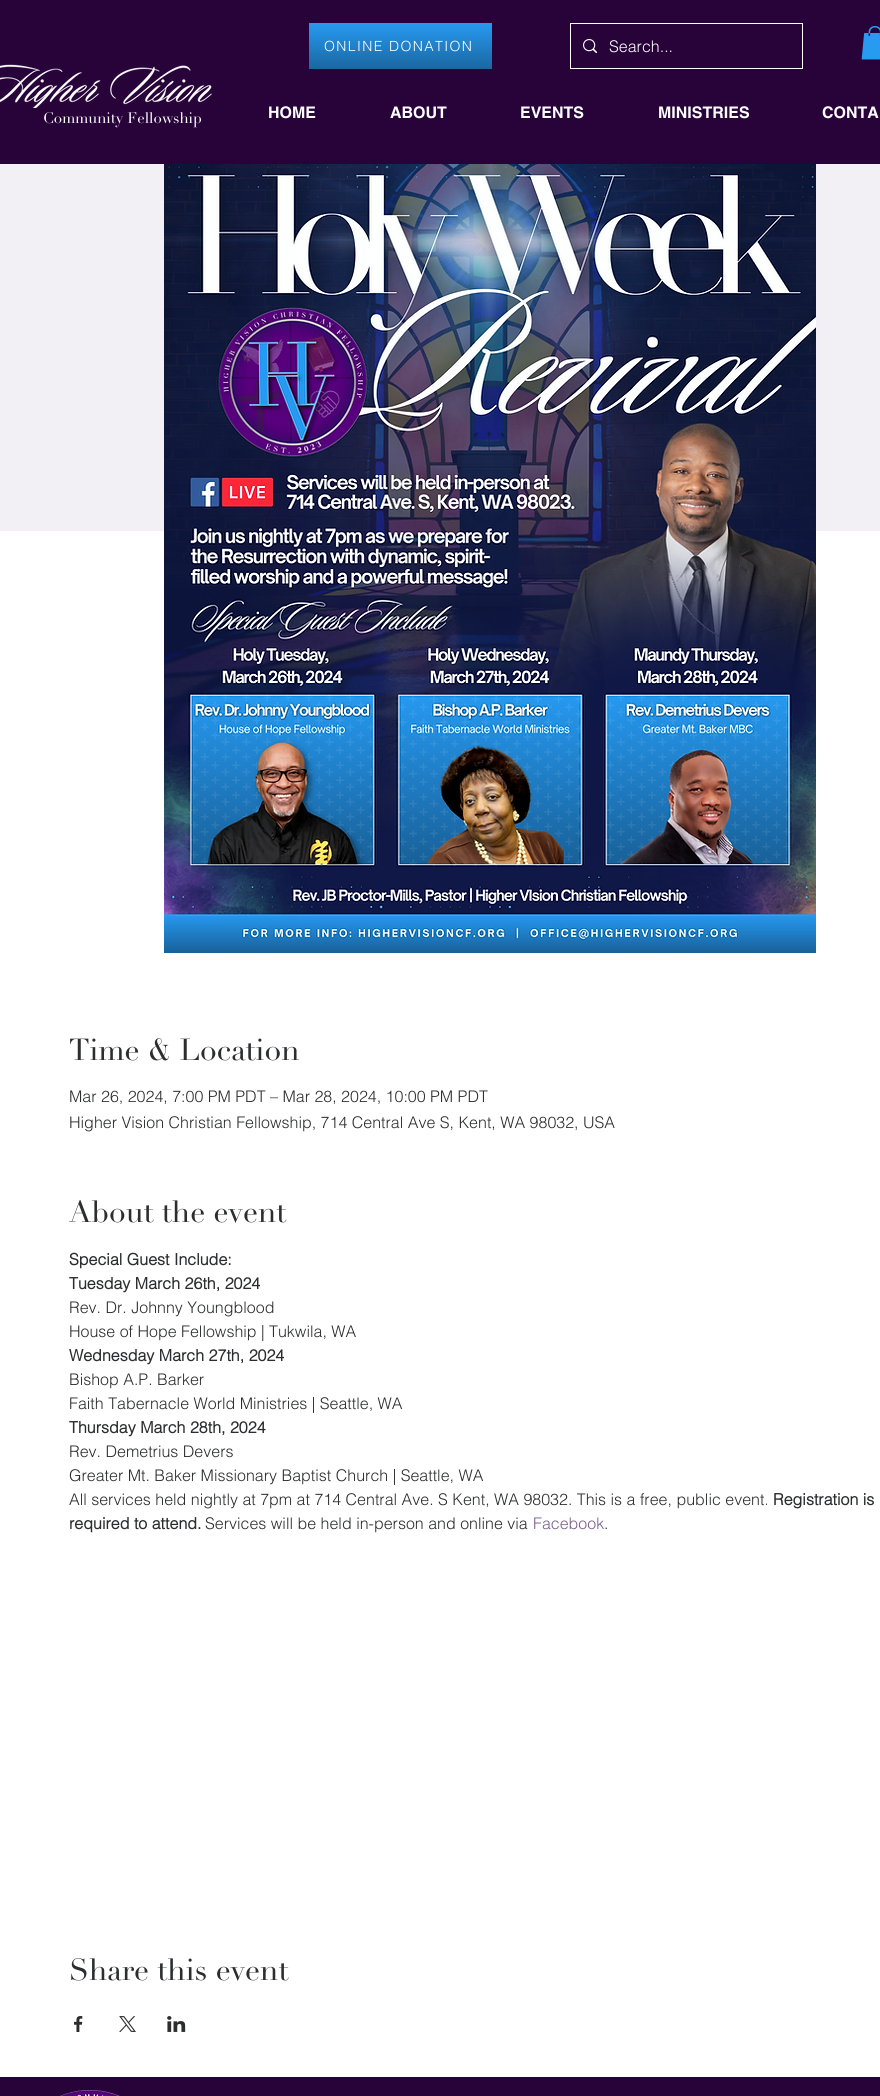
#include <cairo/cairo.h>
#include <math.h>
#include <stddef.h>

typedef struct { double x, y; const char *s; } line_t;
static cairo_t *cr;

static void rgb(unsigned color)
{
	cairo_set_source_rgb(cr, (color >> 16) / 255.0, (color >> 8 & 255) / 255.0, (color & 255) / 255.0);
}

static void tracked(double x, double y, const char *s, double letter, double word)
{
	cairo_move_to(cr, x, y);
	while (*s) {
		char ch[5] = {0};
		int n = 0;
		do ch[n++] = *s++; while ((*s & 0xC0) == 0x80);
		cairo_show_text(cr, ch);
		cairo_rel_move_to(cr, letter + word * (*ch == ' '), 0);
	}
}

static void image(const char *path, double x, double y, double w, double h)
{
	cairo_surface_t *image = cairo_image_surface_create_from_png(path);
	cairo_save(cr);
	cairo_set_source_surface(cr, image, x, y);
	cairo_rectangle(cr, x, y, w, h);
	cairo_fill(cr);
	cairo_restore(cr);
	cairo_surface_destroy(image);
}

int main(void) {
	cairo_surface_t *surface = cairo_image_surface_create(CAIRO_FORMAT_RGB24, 880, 2096);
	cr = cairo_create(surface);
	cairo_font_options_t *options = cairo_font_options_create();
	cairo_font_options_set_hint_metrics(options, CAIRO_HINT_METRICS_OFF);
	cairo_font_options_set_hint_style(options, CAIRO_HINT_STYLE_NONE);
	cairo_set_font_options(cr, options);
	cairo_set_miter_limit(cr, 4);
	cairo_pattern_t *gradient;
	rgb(0xffffff);
	cairo_paint(cr);
	rgb(0x27033a);
	cairo_rectangle(cr, 0, 0, 880, 164);
	cairo_fill(cr);
	gradient = cairo_pattern_create_linear(401, 23, 401, 69);
	cairo_pattern_add_color_stop_rgba(gradient, 0, 0.153, 0.604, 0.945, 1);
	cairo_pattern_add_color_stop_rgba(gradient, 1, 0.102, 0.404, 0.631, 1);
	cairo_set_source(cr, gradient);
	cairo_pattern_destroy(gradient);
	cairo_rectangle(cr, 309, 23, 183, 46);
	cairo_fill(cr);
	cairo_rectangle(cr, 570.5, 23.5, 232, 45);
	rgb(0xffffff);
	cairo_set_line_width(cr, 1);
	cairo_stroke(cr);
	image("img/1.png", 583, 39, 14, 14);
	image("img/2.png", 861, 26, 19, 34);
	image("img/3.png", 0, 64, 212, 44);
	rgb(0xf2f0f4);
	cairo_rectangle(cr, 0, 164, 880, 367);
	cairo_fill(cr);
	image("img/4.png", 164, 164, 652, 789);
	image("img/5.png", 74, 2016, 9, 16);
	image("img/6.png", 119, 2016, 17, 16);
	image("img/7.png", 167, 2016, 19, 16);
	rgb(0x27033a);
	cairo_rectangle(cr, 0, 2077, 880, 19);
	cairo_fill(cr);
	image("img/8.png", 60, 2090, 60, 6);
	cairo_select_font_face(cr, "helvetica Light", CAIRO_FONT_SLANT_NORMAL, CAIRO_FONT_WEIGHT_NORMAL);
	cairo_set_font_size(cr, 14);
	rgb(0xffffff);
	tracked(324, 51, "ONLINE DONATION", 1.4, 0);
	cairo_set_font_size(cr, 16);
	cairo_move_to(cr, 609, 52);
	cairo_show_text(cr, "Search...");
	cairo_select_font_face(cr, "Didot", CAIRO_FONT_SLANT_NORMAL, CAIRO_FONT_WEIGHT_NORMAL);
	cairo_set_font_size(cr, 15);
	cairo_move_to(cr, 43, 123);
	cairo_show_text(cr, "Community Fellowship");
	cairo_select_font_face(cr, "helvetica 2", CAIRO_FONT_SLANT_NORMAL, CAIRO_FONT_WEIGHT_BOLD);
	cairo_set_font_size(cr, 16);
	{
		static const line_t items[] = {
			{268, 118, "HOME"},
			{390, 118, "ABOUT"},
			{520, 118, "EVENTS"},
			{658, 118, "MINISTRIES"},
			{822, 118, "CONTA"},
		};
		for (size_t i = 0; i < sizeof items / sizeof *items; i++) {
			cairo_move_to(cr, items[i].x, items[i].y);
			cairo_show_text(cr, items[i].s);
		}
	}
	cairo_select_font_face(cr, "Didot", CAIRO_FONT_SLANT_NORMAL, CAIRO_FONT_WEIGHT_NORMAL);
	cairo_set_font_size(cr, 30);
	rgb(0x2c2d2e);
	cairo_move_to(cr, 69, 1060);
	cairo_show_text(cr, "Time & Location");
	cairo_select_font_face(cr, "helvetica Light", CAIRO_FONT_SLANT_NORMAL, CAIRO_FONT_WEIGHT_NORMAL);
	cairo_set_font_size(cr, 16);
	cairo_move_to(cr, 69, 1102);
	cairo_show_text(cr, "Mar 26, 2024, 7:00 PM PDT – Mar 28, 2024, 10:00 PM PDT");
	cairo_move_to(cr, 69, 1128);
	cairo_show_text(cr, "Higher Vision Christian Fellowship, 714 Central Ave S, Kent, WA 98032, USA");
	cairo_select_font_face(cr, "Didot", CAIRO_FONT_SLANT_NORMAL, CAIRO_FONT_WEIGHT_NORMAL);
	cairo_set_font_size(cr, 30);
	cairo_move_to(cr, 69, 1222);
	cairo_show_text(cr, "About the event");
	cairo_select_font_face(cr, "helvetica", CAIRO_FONT_SLANT_NORMAL, CAIRO_FONT_WEIGHT_BOLD);
	cairo_set_font_size(cr, 16);
	cairo_move_to(cr, 69, 1265);
	cairo_show_text(cr, "Special Guest Include:");
	cairo_move_to(cr, 69, 1289);
	cairo_show_text(cr, "Tuesday March 26th, 2024");
	cairo_select_font_face(cr, "helvetica Light", CAIRO_FONT_SLANT_NORMAL, CAIRO_FONT_WEIGHT_NORMAL);
	cairo_move_to(cr, 69, 1313);
	cairo_show_text(cr, "Rev. Dr. Johnny Youngblood");
	cairo_move_to(cr, 69, 1337);
	cairo_show_text(cr, "House of Hope Fellowship | Tukwila, WA");
	cairo_select_font_face(cr, "helvetica", CAIRO_FONT_SLANT_NORMAL, CAIRO_FONT_WEIGHT_BOLD);
	cairo_move_to(cr, 69, 1361);
	cairo_show_text(cr, "Wednesday March 27th, 2024");
	cairo_select_font_face(cr, "helvetica Light", CAIRO_FONT_SLANT_NORMAL, CAIRO_FONT_WEIGHT_NORMAL);
	cairo_move_to(cr, 69, 1385);
	cairo_show_text(cr, "Bishop A.P. Barker");
	cairo_move_to(cr, 69, 1409);
	cairo_show_text(cr, "Faith Tabernacle World Ministries | Seattle, WA");
	cairo_select_font_face(cr, "helvetica", CAIRO_FONT_SLANT_NORMAL, CAIRO_FONT_WEIGHT_BOLD);
	cairo_move_to(cr, 69, 1433);
	cairo_show_text(cr, "Thursday March 28th, 2024");
	cairo_select_font_face(cr, "helvetica Light", CAIRO_FONT_SLANT_NORMAL, CAIRO_FONT_WEIGHT_NORMAL);
	{
		static const line_t items[] = {
			{69, 1457, "Rev. Demetrius Devers"},
			{69, 1481, "Greater Mt. Baker Missionary Baptist Church | Seattle, WA"},
			{69, 1505, "All services held nightly at 7pm at 714 Central Ave. S Kent, WA 98032. This is a free, public event."},
		};
		for (size_t i = 0; i < sizeof items / sizeof *items; i++) {
			cairo_move_to(cr, items[i].x, items[i].y);
			cairo_show_text(cr, items[i].s);
		}
	}
	cairo_select_font_face(cr, "helvetica", CAIRO_FONT_SLANT_NORMAL, CAIRO_FONT_WEIGHT_BOLD);
	cairo_move_to(cr, 773, 1505);
	cairo_show_text(cr, "Registration is");
	cairo_move_to(cr, 69, 1529);
	cairo_show_text(cr, "required to attend.");
	cairo_select_font_face(cr, "helvetica Light", CAIRO_FONT_SLANT_NORMAL, CAIRO_FONT_WEIGHT_NORMAL);
	cairo_move_to(cr, 205, 1529);
	cairo_show_text(cr, "Services will be held in-person and online via");
	rgb(0x7a5e89);
	cairo_move_to(cr, 533, 1529);
	cairo_show_text(cr, "Facebook");
	rgb(0x2c2d2e);
	cairo_move_to(cr, 604, 1529);
	cairo_show_text(cr, ".");
	cairo_select_font_face(cr, "Didot", CAIRO_FONT_SLANT_NORMAL, CAIRO_FONT_WEIGHT_NORMAL);
	cairo_set_font_size(cr, 30);
	cairo_move_to(cr, 69, 1980);
	cairo_show_text(cr, "Share this event");
	cairo_surface_write_to_png(surface, "page.png");
	cairo_font_options_destroy(options);
	cairo_destroy(cr);
	cairo_surface_destroy(surface);
	return 0;
}
